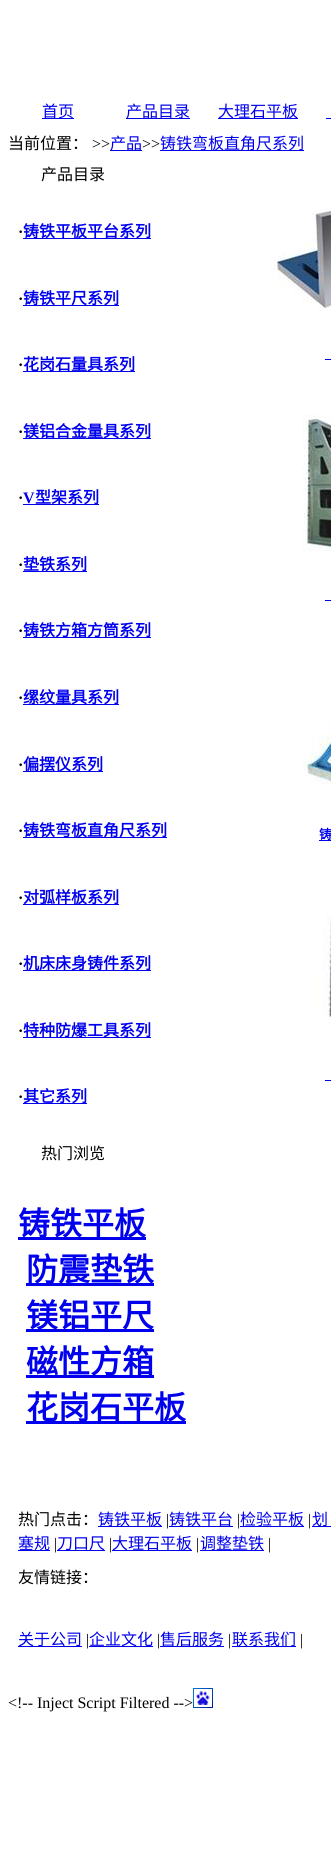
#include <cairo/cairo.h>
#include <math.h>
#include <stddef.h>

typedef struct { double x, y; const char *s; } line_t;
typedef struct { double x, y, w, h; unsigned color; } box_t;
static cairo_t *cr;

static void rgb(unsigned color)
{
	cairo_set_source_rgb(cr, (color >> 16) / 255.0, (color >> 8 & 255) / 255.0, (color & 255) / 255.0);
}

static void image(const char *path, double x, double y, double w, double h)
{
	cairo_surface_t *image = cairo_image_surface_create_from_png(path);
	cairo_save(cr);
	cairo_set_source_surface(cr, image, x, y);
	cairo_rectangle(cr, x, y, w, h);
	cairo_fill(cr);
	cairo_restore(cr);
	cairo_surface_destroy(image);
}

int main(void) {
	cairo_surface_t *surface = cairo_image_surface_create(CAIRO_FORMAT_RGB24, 331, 1854);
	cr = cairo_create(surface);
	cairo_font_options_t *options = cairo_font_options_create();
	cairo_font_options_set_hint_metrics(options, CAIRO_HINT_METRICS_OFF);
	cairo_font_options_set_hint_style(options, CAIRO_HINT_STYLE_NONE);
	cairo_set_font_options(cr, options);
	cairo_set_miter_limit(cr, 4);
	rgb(0xffffff);
	cairo_paint(cr);
	{
		static const box_t items[] = {
			{42, 118, 32, 1, 0x0000ee},
			{126, 118, 64, 1, 0x0000ee},
			{218, 118, 80, 1, 0x0000ee},
			{326, 118, 5, 1, 0x0000ee},
			{110, 150, 32, 1, 0x0000ee},
			{160, 150, 144, 1, 0x0000ee},
			{23, 238, 128, 1, 0x0000ee},
			{23, 305, 96, 1, 0x0000ee},
			{23, 371, 112, 1, 0x0000ee},
			{23, 438, 128, 1, 0x0000ee},
			{23, 504, 76, 1, 0x0000ee},
			{23, 571, 64, 1, 0x0000ee},
			{23, 637, 128, 1, 0x0000ee},
			{23, 704, 96, 1, 0x0000ee},
			{23, 771, 80, 1, 0x0000ee},
			{23, 837, 144, 1, 0x0000ee},
			{23, 904, 96, 1, 0x0000ee},
			{23, 970, 128, 1, 0x0000ee},
			{23, 1037, 128, 1, 0x0000ee},
			{23, 1103, 64, 1, 0x0000ee},
			{18, 1237, 128, 3, 0x0000ee},
			{26, 1283, 128, 3, 0x0000ee},
			{26, 1329, 128, 3, 0x0000ee},
			{26, 1375, 128, 3, 0x0000ee},
			{26, 1421, 160, 3, 0x0000ee},
		};
		for (size_t i = 0; i < sizeof items / sizeof *items; i++) {
			rgb(items[i].color);
			cairo_rectangle(cr, items[i].x, items[i].y, items[i].w, items[i].h);
			cairo_fill(cr);
		}
	}
	image("img/1.png", 271, 207, 60, 104);
	cairo_rectangle(cr, 325, 359, 6, 1);
	cairo_fill(cr);
	image("img/2.png", 303, 415, 28, 136);
	cairo_rectangle(cr, 325, 600, 6, 1);
	cairo_fill(cr);
	image("img/3.png", 303, 720, 28, 64);
	cairo_rectangle(cr, 319, 840, 12, 1);
	cairo_fill(cr);
	image("img/4.png", 312, 913, 19, 110);
	{
		static const box_t items[] = {
			{325, 1080, 6, 1, 0x0000ee},
			{98, 1526, 64, 1, 0x0000ee},
			{169, 1526, 64, 1, 0x0000ee},
			{240, 1526, 64, 1, 0x0000ee},
			{312, 1526, 19, 1, 0x0000ee},
			{18, 1550, 32, 1, 0x0000ee},
			{57, 1550, 48, 1, 0x0000ee},
			{112, 1550, 80, 1, 0x0000ee},
			{200, 1550, 64, 1, 0x0000ee},
			{18, 1646, 64, 1, 0x0000ee},
			{89, 1646, 64, 1, 0x0000ee},
			{160, 1646, 64, 1, 0x0000ee},
			{232, 1646, 64, 1, 0x0000ee},
		};
		for (size_t i = 0; i < sizeof items / sizeof *items; i++) {
			rgb(items[i].color);
			cairo_rectangle(cr, items[i].x, items[i].y, items[i].w, items[i].h);
			cairo_fill(cr);
		}
	}
	image("img/5.png", 193, 1688, 20, 20);
	cairo_select_font_face(cr, "Noto Sans CJK SC", CAIRO_FONT_SLANT_NORMAL, CAIRO_FONT_WEIGHT_NORMAL);
	cairo_set_font_size(cr, 16);
	{
		static const line_t items[] = {
			{42, 117, "首页"},
			{126, 117, "产品目录"},
			{218, 117, "大理石平板"},
		};
		for (size_t i = 0; i < sizeof items / sizeof *items; i++) {
			cairo_move_to(cr, items[i].x, items[i].y);
			cairo_show_text(cr, items[i].s);
		}
	}
	rgb(0x000000);
	cairo_move_to(cr, 8, 149);
	cairo_show_text(cr, "当前位置：");
	cairo_select_font_face(cr, "Liberation Serif", CAIRO_FONT_SLANT_NORMAL, CAIRO_FONT_WEIGHT_NORMAL);
	cairo_move_to(cr, 92, 149);
	cairo_show_text(cr, ">>");
	cairo_select_font_face(cr, "Noto Sans CJK SC", CAIRO_FONT_SLANT_NORMAL, CAIRO_FONT_WEIGHT_NORMAL);
	rgb(0x0000ee);
	cairo_move_to(cr, 110, 149);
	cairo_show_text(cr, "产品");
	cairo_select_font_face(cr, "Liberation Serif", CAIRO_FONT_SLANT_NORMAL, CAIRO_FONT_WEIGHT_NORMAL);
	rgb(0x000000);
	cairo_move_to(cr, 142, 149);
	cairo_show_text(cr, ">>");
	cairo_select_font_face(cr, "Noto Sans CJK SC", CAIRO_FONT_SLANT_NORMAL, CAIRO_FONT_WEIGHT_NORMAL);
	rgb(0x0000ee);
	cairo_move_to(cr, 160, 149);
	cairo_show_text(cr, "铸铁弯板直角尺系列");
	rgb(0x000000);
	cairo_move_to(cr, 41, 180);
	cairo_show_text(cr, "产品目录");
	cairo_select_font_face(cr, "Liberation Serif", CAIRO_FONT_SLANT_NORMAL, CAIRO_FONT_WEIGHT_BOLD);
	cairo_move_to(cr, 18, 237);
	cairo_show_text(cr, "·");
	cairo_select_font_face(cr, "Noto Sans CJK SC", CAIRO_FONT_SLANT_NORMAL, CAIRO_FONT_WEIGHT_BOLD);
	rgb(0x0000ee);
	cairo_move_to(cr, 23, 237);
	cairo_show_text(cr, "铸铁平板平台系列");
	cairo_select_font_face(cr, "Liberation Serif", CAIRO_FONT_SLANT_NORMAL, CAIRO_FONT_WEIGHT_BOLD);
	rgb(0x000000);
	cairo_move_to(cr, 18, 304);
	cairo_show_text(cr, "·");
	cairo_select_font_face(cr, "Noto Sans CJK SC", CAIRO_FONT_SLANT_NORMAL, CAIRO_FONT_WEIGHT_BOLD);
	rgb(0x0000ee);
	cairo_move_to(cr, 23, 304);
	cairo_show_text(cr, "铸铁平尺系列");
	cairo_select_font_face(cr, "Liberation Serif", CAIRO_FONT_SLANT_NORMAL, CAIRO_FONT_WEIGHT_BOLD);
	rgb(0x000000);
	cairo_move_to(cr, 18, 370);
	cairo_show_text(cr, "·");
	cairo_select_font_face(cr, "Noto Sans CJK SC", CAIRO_FONT_SLANT_NORMAL, CAIRO_FONT_WEIGHT_BOLD);
	rgb(0x0000ee);
	cairo_move_to(cr, 23, 370);
	cairo_show_text(cr, "花岗石量具系列");
	cairo_select_font_face(cr, "Liberation Serif", CAIRO_FONT_SLANT_NORMAL, CAIRO_FONT_WEIGHT_BOLD);
	rgb(0x000000);
	cairo_move_to(cr, 18, 437);
	cairo_show_text(cr, "·");
	cairo_select_font_face(cr, "Noto Sans CJK SC", CAIRO_FONT_SLANT_NORMAL, CAIRO_FONT_WEIGHT_BOLD);
	rgb(0x0000ee);
	cairo_move_to(cr, 23, 437);
	cairo_show_text(cr, "镁铝合金量具系列");
	cairo_select_font_face(cr, "Liberation Serif", CAIRO_FONT_SLANT_NORMAL, CAIRO_FONT_WEIGHT_BOLD);
	rgb(0x000000);
	cairo_move_to(cr, 18, 503);
	cairo_show_text(cr, "·");
	rgb(0x0000ee);
	cairo_move_to(cr, 23, 503);
	cairo_show_text(cr, "V");
	cairo_select_font_face(cr, "Noto Sans CJK SC", CAIRO_FONT_SLANT_NORMAL, CAIRO_FONT_WEIGHT_BOLD);
	cairo_move_to(cr, 35, 503);
	cairo_show_text(cr, "型架系列");
	cairo_select_font_face(cr, "Liberation Serif", CAIRO_FONT_SLANT_NORMAL, CAIRO_FONT_WEIGHT_BOLD);
	rgb(0x000000);
	cairo_move_to(cr, 18, 570);
	cairo_show_text(cr, "·");
	cairo_select_font_face(cr, "Noto Sans CJK SC", CAIRO_FONT_SLANT_NORMAL, CAIRO_FONT_WEIGHT_BOLD);
	rgb(0x0000ee);
	cairo_move_to(cr, 23, 570);
	cairo_show_text(cr, "垫铁系列");
	cairo_select_font_face(cr, "Liberation Serif", CAIRO_FONT_SLANT_NORMAL, CAIRO_FONT_WEIGHT_BOLD);
	rgb(0x000000);
	cairo_move_to(cr, 18, 636);
	cairo_show_text(cr, "·");
	cairo_select_font_face(cr, "Noto Sans CJK SC", CAIRO_FONT_SLANT_NORMAL, CAIRO_FONT_WEIGHT_BOLD);
	rgb(0x0000ee);
	cairo_move_to(cr, 23, 636);
	cairo_show_text(cr, "铸铁方箱方筒系列");
	cairo_select_font_face(cr, "Liberation Serif", CAIRO_FONT_SLANT_NORMAL, CAIRO_FONT_WEIGHT_BOLD);
	rgb(0x000000);
	cairo_move_to(cr, 18, 703);
	cairo_show_text(cr, "·");
	cairo_select_font_face(cr, "Noto Sans CJK SC", CAIRO_FONT_SLANT_NORMAL, CAIRO_FONT_WEIGHT_BOLD);
	rgb(0x0000ee);
	cairo_move_to(cr, 23, 703);
	cairo_show_text(cr, "缧纹量具系列");
	cairo_select_font_face(cr, "Liberation Serif", CAIRO_FONT_SLANT_NORMAL, CAIRO_FONT_WEIGHT_BOLD);
	rgb(0x000000);
	cairo_move_to(cr, 18, 770);
	cairo_show_text(cr, "·");
	cairo_select_font_face(cr, "Noto Sans CJK SC", CAIRO_FONT_SLANT_NORMAL, CAIRO_FONT_WEIGHT_BOLD);
	rgb(0x0000ee);
	cairo_move_to(cr, 23, 770);
	cairo_show_text(cr, "偏摆仪系列");
	cairo_select_font_face(cr, "Liberation Serif", CAIRO_FONT_SLANT_NORMAL, CAIRO_FONT_WEIGHT_BOLD);
	rgb(0x000000);
	cairo_move_to(cr, 18, 836);
	cairo_show_text(cr, "·");
	cairo_select_font_face(cr, "Noto Sans CJK SC", CAIRO_FONT_SLANT_NORMAL, CAIRO_FONT_WEIGHT_BOLD);
	rgb(0x0000ee);
	cairo_move_to(cr, 23, 836);
	cairo_show_text(cr, "铸铁弯板直角尺系列");
	cairo_select_font_face(cr, "Liberation Serif", CAIRO_FONT_SLANT_NORMAL, CAIRO_FONT_WEIGHT_BOLD);
	rgb(0x000000);
	cairo_move_to(cr, 18, 903);
	cairo_show_text(cr, "·");
	cairo_select_font_face(cr, "Noto Sans CJK SC", CAIRO_FONT_SLANT_NORMAL, CAIRO_FONT_WEIGHT_BOLD);
	rgb(0x0000ee);
	cairo_move_to(cr, 23, 903);
	cairo_show_text(cr, "对弧样板系列");
	cairo_select_font_face(cr, "Liberation Serif", CAIRO_FONT_SLANT_NORMAL, CAIRO_FONT_WEIGHT_BOLD);
	rgb(0x000000);
	cairo_move_to(cr, 18, 969);
	cairo_show_text(cr, "·");
	cairo_select_font_face(cr, "Noto Sans CJK SC", CAIRO_FONT_SLANT_NORMAL, CAIRO_FONT_WEIGHT_BOLD);
	rgb(0x0000ee);
	cairo_move_to(cr, 23, 969);
	cairo_show_text(cr, "机床床身铸件系列");
	cairo_select_font_face(cr, "Liberation Serif", CAIRO_FONT_SLANT_NORMAL, CAIRO_FONT_WEIGHT_BOLD);
	rgb(0x000000);
	cairo_move_to(cr, 18, 1036);
	cairo_show_text(cr, "·");
	cairo_select_font_face(cr, "Noto Sans CJK SC", CAIRO_FONT_SLANT_NORMAL, CAIRO_FONT_WEIGHT_BOLD);
	rgb(0x0000ee);
	cairo_move_to(cr, 23, 1036);
	cairo_show_text(cr, "特种防爆工具系列");
	cairo_select_font_face(cr, "Liberation Serif", CAIRO_FONT_SLANT_NORMAL, CAIRO_FONT_WEIGHT_BOLD);
	rgb(0x000000);
	cairo_move_to(cr, 18, 1102);
	cairo_show_text(cr, "·");
	cairo_select_font_face(cr, "Noto Sans CJK SC", CAIRO_FONT_SLANT_NORMAL, CAIRO_FONT_WEIGHT_BOLD);
	rgb(0x0000ee);
	cairo_move_to(cr, 23, 1102);
	cairo_show_text(cr, "其它系列");
	cairo_select_font_face(cr, "Noto Sans CJK SC", CAIRO_FONT_SLANT_NORMAL, CAIRO_FONT_WEIGHT_NORMAL);
	rgb(0x000000);
	cairo_move_to(cr, 41, 1159);
	cairo_show_text(cr, "热门浏览");
	cairo_select_font_face(cr, "Noto Sans CJK SC", CAIRO_FONT_SLANT_NORMAL, CAIRO_FONT_WEIGHT_BOLD);
	cairo_set_font_size(cr, 32);
	rgb(0x0000ee);
	{
		static const line_t items[] = {
			{18, 1235, "铸铁平板"},
			{26, 1281, "防震垫铁"},
			{26, 1327, "镁铝平尺"},
			{26, 1373, "磁性方箱"},
			{26, 1419, "花岗石平板"},
		};
		for (size_t i = 0; i < sizeof items / sizeof *items; i++) {
			cairo_move_to(cr, items[i].x, items[i].y);
			cairo_show_text(cr, items[i].s);
		}
	}
	cairo_set_font_size(cr, 13);
	cairo_move_to(cr, 319, 839);
	cairo_show_text(cr, "铸");
	cairo_select_font_face(cr, "Noto Sans CJK SC", CAIRO_FONT_SLANT_NORMAL, CAIRO_FONT_WEIGHT_NORMAL);
	cairo_set_font_size(cr, 16);
	rgb(0x000000);
	cairo_move_to(cr, 18, 1525);
	cairo_show_text(cr, "热门点击：");
	rgb(0x0000ee);
	cairo_move_to(cr, 98, 1525);
	cairo_show_text(cr, "铸铁平板");
	cairo_select_font_face(cr, "Liberation Serif", CAIRO_FONT_SLANT_NORMAL, CAIRO_FONT_WEIGHT_NORMAL);
	rgb(0x000000);
	cairo_move_to(cr, 166, 1525);
	cairo_show_text(cr, "|");
	cairo_select_font_face(cr, "Noto Sans CJK SC", CAIRO_FONT_SLANT_NORMAL, CAIRO_FONT_WEIGHT_NORMAL);
	rgb(0x0000ee);
	cairo_move_to(cr, 169, 1525);
	cairo_show_text(cr, "铸铁平台");
	cairo_select_font_face(cr, "Liberation Serif", CAIRO_FONT_SLANT_NORMAL, CAIRO_FONT_WEIGHT_NORMAL);
	rgb(0x000000);
	cairo_move_to(cr, 237, 1525);
	cairo_show_text(cr, "|");
	cairo_select_font_face(cr, "Noto Sans CJK SC", CAIRO_FONT_SLANT_NORMAL, CAIRO_FONT_WEIGHT_NORMAL);
	rgb(0x0000ee);
	cairo_move_to(cr, 240, 1525);
	cairo_show_text(cr, "检验平板");
	cairo_select_font_face(cr, "Liberation Serif", CAIRO_FONT_SLANT_NORMAL, CAIRO_FONT_WEIGHT_NORMAL);
	rgb(0x000000);
	cairo_move_to(cr, 308, 1525);
	cairo_show_text(cr, "|");
	cairo_select_font_face(cr, "Noto Sans CJK SC", CAIRO_FONT_SLANT_NORMAL, CAIRO_FONT_WEIGHT_NORMAL);
	rgb(0x0000ee);
	cairo_move_to(cr, 312, 1525);
	cairo_show_text(cr, "划");
	cairo_move_to(cr, 18, 1549);
	cairo_show_text(cr, "塞规");
	cairo_select_font_face(cr, "Liberation Serif", CAIRO_FONT_SLANT_NORMAL, CAIRO_FONT_WEIGHT_NORMAL);
	rgb(0x000000);
	cairo_move_to(cr, 54, 1549);
	cairo_show_text(cr, "|");
	cairo_select_font_face(cr, "Noto Sans CJK SC", CAIRO_FONT_SLANT_NORMAL, CAIRO_FONT_WEIGHT_NORMAL);
	rgb(0x0000ee);
	cairo_move_to(cr, 57, 1549);
	cairo_show_text(cr, "刀口尺");
	cairo_select_font_face(cr, "Liberation Serif", CAIRO_FONT_SLANT_NORMAL, CAIRO_FONT_WEIGHT_NORMAL);
	rgb(0x000000);
	cairo_move_to(cr, 109, 1549);
	cairo_show_text(cr, "|");
	cairo_select_font_face(cr, "Noto Sans CJK SC", CAIRO_FONT_SLANT_NORMAL, CAIRO_FONT_WEIGHT_NORMAL);
	rgb(0x0000ee);
	cairo_move_to(cr, 112, 1549);
	cairo_show_text(cr, "大理石平板");
	cairo_select_font_face(cr, "Liberation Serif", CAIRO_FONT_SLANT_NORMAL, CAIRO_FONT_WEIGHT_NORMAL);
	rgb(0x000000);
	cairo_move_to(cr, 196, 1549);
	cairo_show_text(cr, "|");
	cairo_select_font_face(cr, "Noto Sans CJK SC", CAIRO_FONT_SLANT_NORMAL, CAIRO_FONT_WEIGHT_NORMAL);
	rgb(0x0000ee);
	cairo_move_to(cr, 200, 1549);
	cairo_show_text(cr, "调整垫铁");
	cairo_select_font_face(cr, "Liberation Serif", CAIRO_FONT_SLANT_NORMAL, CAIRO_FONT_WEIGHT_NORMAL);
	rgb(0x000000);
	cairo_move_to(cr, 268, 1549);
	cairo_show_text(cr, "|");
	cairo_select_font_face(cr, "Noto Sans CJK SC", CAIRO_FONT_SLANT_NORMAL, CAIRO_FONT_WEIGHT_NORMAL);
	cairo_move_to(cr, 18, 1583);
	cairo_show_text(cr, "友情链接：");
	rgb(0x0000ee);
	cairo_move_to(cr, 18, 1645);
	cairo_show_text(cr, "关于公司");
	cairo_select_font_face(cr, "Liberation Serif", CAIRO_FONT_SLANT_NORMAL, CAIRO_FONT_WEIGHT_NORMAL);
	rgb(0x000000);
	cairo_move_to(cr, 86, 1645);
	cairo_show_text(cr, "|");
	cairo_select_font_face(cr, "Noto Sans CJK SC", CAIRO_FONT_SLANT_NORMAL, CAIRO_FONT_WEIGHT_NORMAL);
	rgb(0x0000ee);
	cairo_move_to(cr, 89, 1645);
	cairo_show_text(cr, "企业文化");
	cairo_select_font_face(cr, "Liberation Serif", CAIRO_FONT_SLANT_NORMAL, CAIRO_FONT_WEIGHT_NORMAL);
	rgb(0x000000);
	cairo_move_to(cr, 157, 1645);
	cairo_show_text(cr, "|");
	cairo_select_font_face(cr, "Noto Sans CJK SC", CAIRO_FONT_SLANT_NORMAL, CAIRO_FONT_WEIGHT_NORMAL);
	rgb(0x0000ee);
	cairo_move_to(cr, 160, 1645);
	cairo_show_text(cr, "售后服务");
	cairo_select_font_face(cr, "Liberation Serif", CAIRO_FONT_SLANT_NORMAL, CAIRO_FONT_WEIGHT_NORMAL);
	rgb(0x000000);
	cairo_move_to(cr, 228, 1645);
	cairo_show_text(cr, "|");
	cairo_select_font_face(cr, "Noto Sans CJK SC", CAIRO_FONT_SLANT_NORMAL, CAIRO_FONT_WEIGHT_NORMAL);
	rgb(0x0000ee);
	cairo_move_to(cr, 232, 1645);
	cairo_show_text(cr, "联系我们");
	cairo_select_font_face(cr, "Liberation Serif", CAIRO_FONT_SLANT_NORMAL, CAIRO_FONT_WEIGHT_NORMAL);
	rgb(0x000000);
	cairo_move_to(cr, 300, 1645);
	cairo_show_text(cr, "|");
	cairo_move_to(cr, 8, 1708);
	cairo_show_text(cr, "<!-- Inject Script Filtered -->");
	cairo_surface_write_to_png(surface, "page.png");
	cairo_font_options_destroy(options);
	cairo_destroy(cr);
	cairo_surface_destroy(surface);
	return 0;
}
